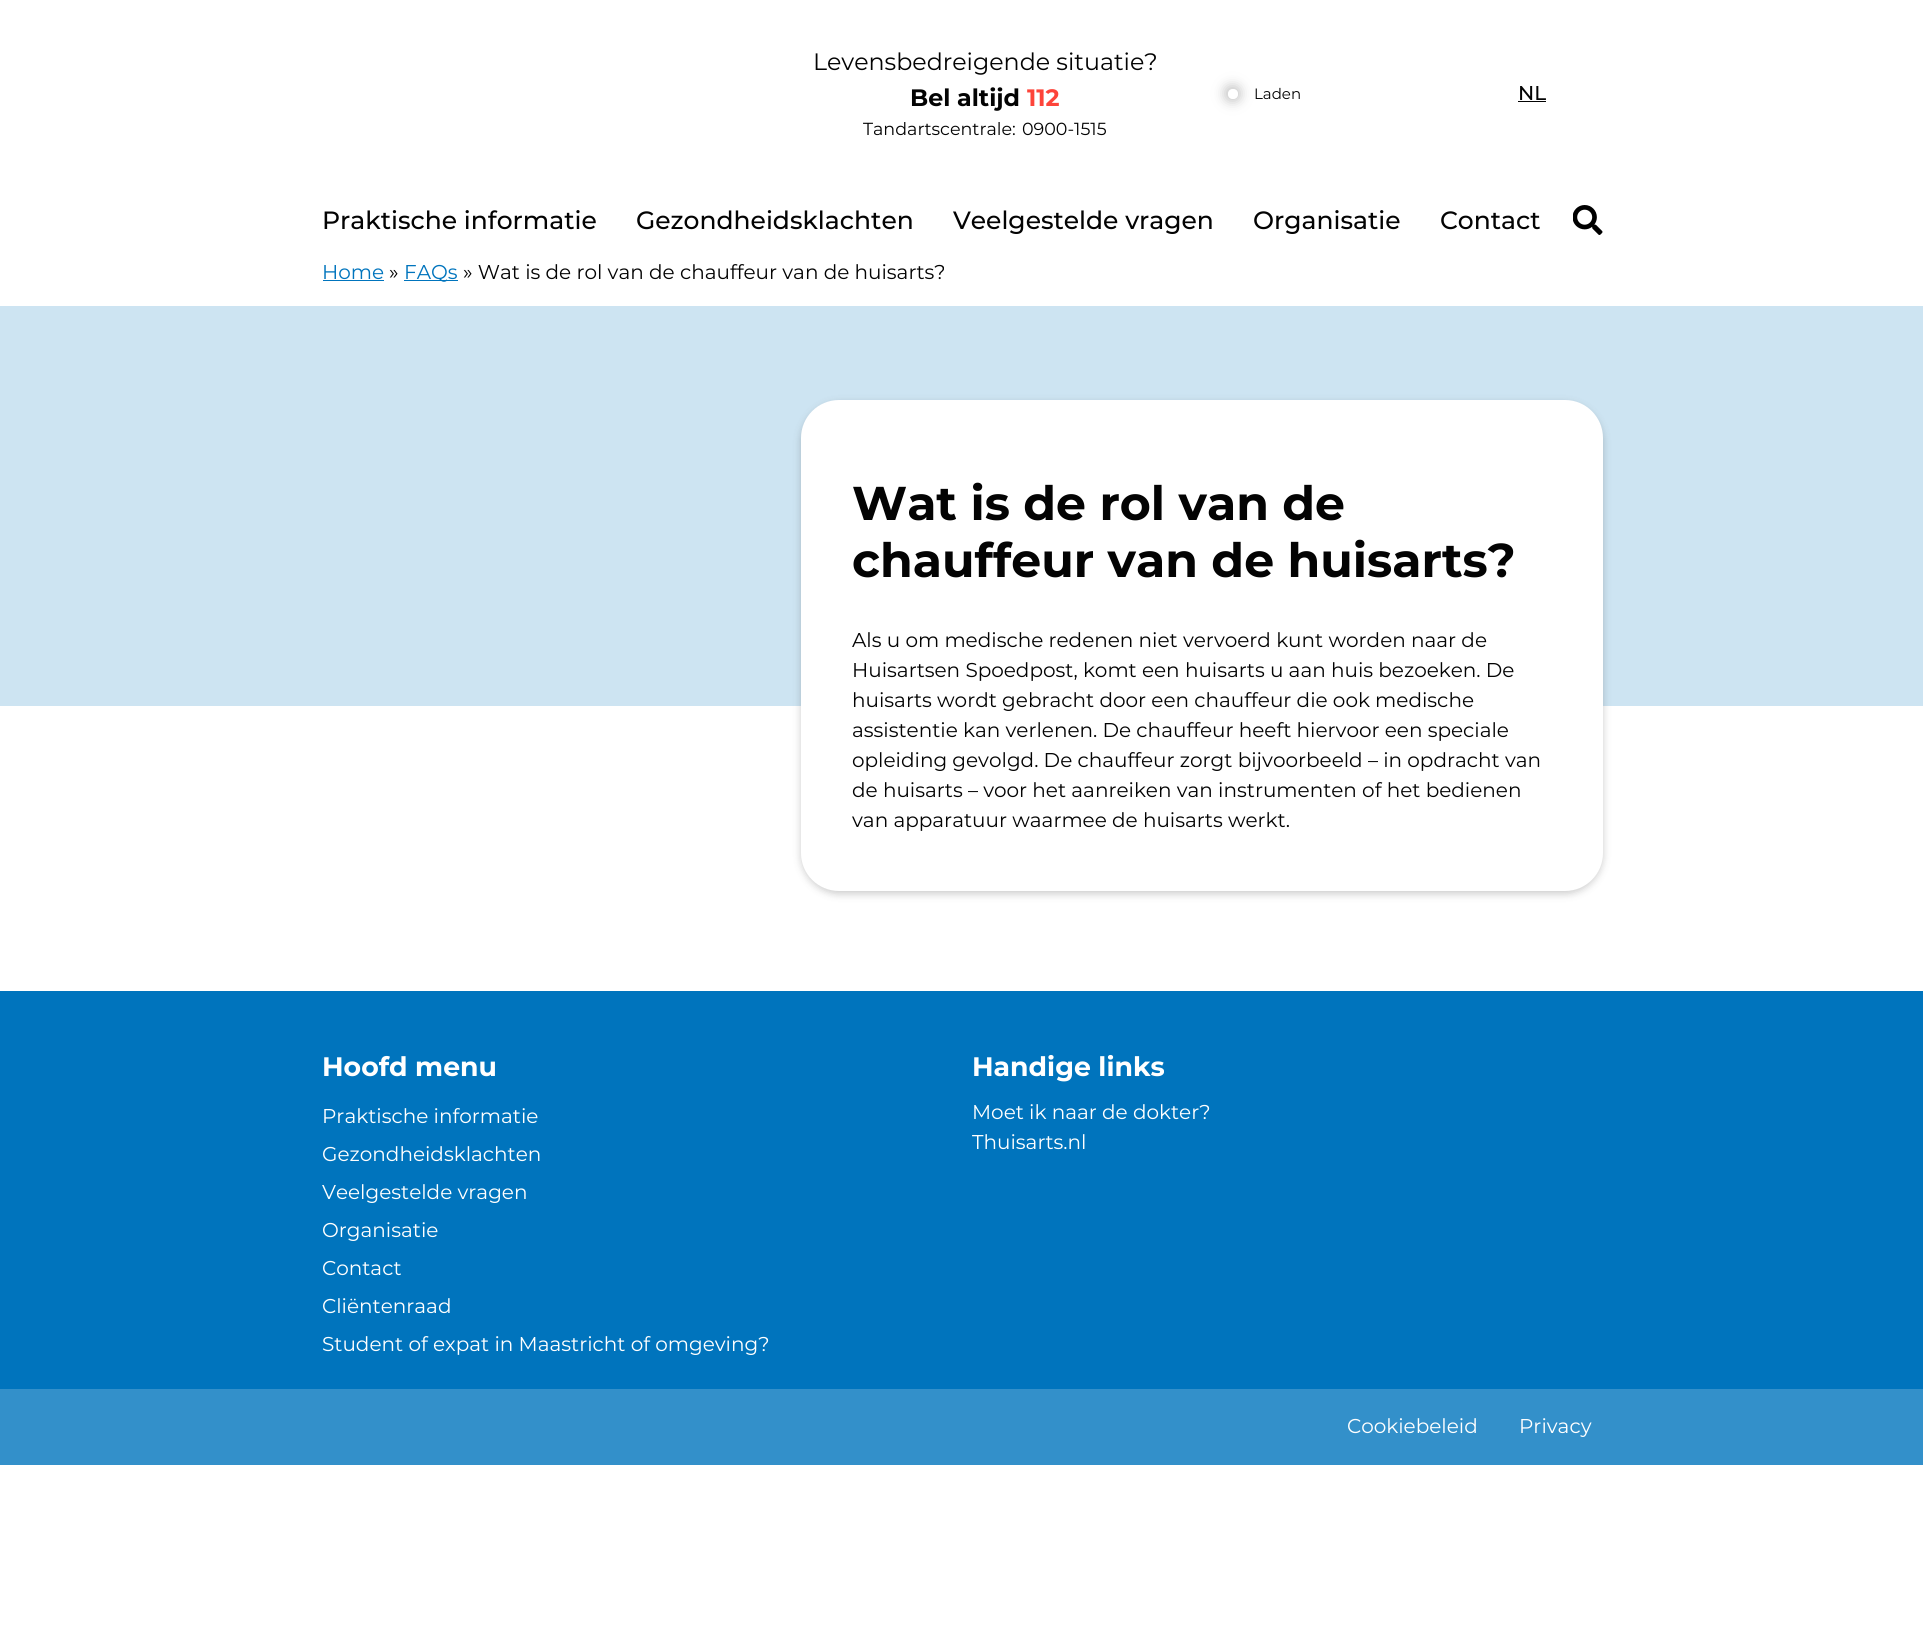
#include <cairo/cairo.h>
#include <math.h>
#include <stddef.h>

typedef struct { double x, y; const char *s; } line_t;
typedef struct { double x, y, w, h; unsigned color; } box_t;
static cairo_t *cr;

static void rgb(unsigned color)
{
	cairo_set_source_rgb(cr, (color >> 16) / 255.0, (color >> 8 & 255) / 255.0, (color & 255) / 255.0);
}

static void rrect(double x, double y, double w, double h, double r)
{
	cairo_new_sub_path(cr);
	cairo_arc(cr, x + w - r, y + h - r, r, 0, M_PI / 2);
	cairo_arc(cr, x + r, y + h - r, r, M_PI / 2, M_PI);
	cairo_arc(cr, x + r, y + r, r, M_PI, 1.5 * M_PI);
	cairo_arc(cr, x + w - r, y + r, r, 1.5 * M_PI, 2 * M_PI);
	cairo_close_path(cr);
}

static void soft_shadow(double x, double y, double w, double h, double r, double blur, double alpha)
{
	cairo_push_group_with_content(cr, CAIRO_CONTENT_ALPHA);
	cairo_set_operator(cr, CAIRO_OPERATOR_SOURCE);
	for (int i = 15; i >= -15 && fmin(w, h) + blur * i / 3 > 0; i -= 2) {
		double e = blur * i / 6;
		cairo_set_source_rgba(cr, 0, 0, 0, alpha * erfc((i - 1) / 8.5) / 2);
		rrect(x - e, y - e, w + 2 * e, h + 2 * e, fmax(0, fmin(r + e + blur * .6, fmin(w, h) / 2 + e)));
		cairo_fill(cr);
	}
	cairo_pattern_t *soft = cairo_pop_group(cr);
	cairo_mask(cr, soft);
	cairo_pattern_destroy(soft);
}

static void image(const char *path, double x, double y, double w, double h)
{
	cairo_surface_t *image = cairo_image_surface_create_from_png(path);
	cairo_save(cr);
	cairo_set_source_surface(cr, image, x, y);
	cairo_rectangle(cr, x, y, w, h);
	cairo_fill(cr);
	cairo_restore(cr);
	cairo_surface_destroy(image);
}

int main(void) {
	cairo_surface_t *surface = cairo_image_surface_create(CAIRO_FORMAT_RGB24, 1923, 1646);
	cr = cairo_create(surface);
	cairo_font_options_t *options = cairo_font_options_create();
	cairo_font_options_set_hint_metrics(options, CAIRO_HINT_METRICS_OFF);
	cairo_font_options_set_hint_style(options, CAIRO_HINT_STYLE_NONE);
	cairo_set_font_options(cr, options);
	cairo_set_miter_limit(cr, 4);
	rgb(0xffffff);
	cairo_paint(cr);
	cairo_save(cr);
	cairo_set_fill_rule(cr, CAIRO_FILL_RULE_EVEN_ODD);
	cairo_new_path(cr);
	cairo_move_to(cr, 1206, 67);
	cairo_line_to(cr, 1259, 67);
	cairo_line_to(cr, 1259, 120);
	cairo_line_to(cr, 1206, 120);
	cairo_close_path(cr);
	cairo_move_to(cr, 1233, 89);
	cairo_curve_to(cr, 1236, 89, 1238, 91, 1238, 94);
	cairo_curve_to(cr, 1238, 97, 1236, 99, 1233, 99);
	cairo_curve_to(cr, 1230, 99, 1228, 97, 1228, 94);
	cairo_curve_to(cr, 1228, 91, 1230, 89, 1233, 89);
	cairo_close_path(cr);
	cairo_clip(cr);
	rgb(0xb4b4b4);
	soft_shadow(1225, 86, 15, 15, 7.5, 6, 0.8);
	cairo_restore(cr);
	rgb(0x030303);
	cairo_rectangle(cr, 1518, 101, 28, 1);
	cairo_fill(cr);
	image("img/1.png", 1573, 205, 30, 30);
	{
		static const box_t items[] = {
			{323, 280, 61, 1, 0x0074bd},
			{404, 280, 54, 1, 0x0074bd},
			{0, 306, 1923, 400, 0xcde4f2},
		};
		for (size_t i = 0; i < sizeof items / sizeof *items; i++) {
			rgb(items[i].color);
			cairo_rectangle(cr, items[i].x, items[i].y, items[i].w, items[i].h);
			cairo_fill(cr);
		}
	}
	rgb(0x333333);
	soft_shadow(801, 403, 802, 491, 38, 4, 0.25);
	rgb(0xffffff);
	rrect(801, 400, 802, 491, 38);
	cairo_fill(cr);
	rgb(0x0074bd);
	cairo_rectangle(cr, 0, 991, 1923, 398);
	cairo_fill(cr);
	rgb(0x3390ca);
	cairo_rectangle(cr, 0, 1389, 1923, 76);
	cairo_fill(cr);
	cairo_select_font_face(cr, "Montserrat", CAIRO_FONT_SLANT_NORMAL, CAIRO_FONT_WEIGHT_NORMAL);
	cairo_set_font_size(cr, 23.75);
	rgb(0x030303);
	cairo_move_to(cr, 813, 70);
	cairo_show_text(cr, "Levensbedreigende situatie?");
	cairo_select_font_face(cr, "Montserrat", CAIRO_FONT_SLANT_NORMAL, CAIRO_FONT_WEIGHT_BOLD);
	cairo_move_to(cr, 910, 106);
	cairo_show_text(cr, "Bel altijd");
	rgb(0xfd443a);
	cairo_move_to(cr, 1027, 106);
	cairo_show_text(cr, "112");
	cairo_select_font_face(cr, "Montserrat", CAIRO_FONT_SLANT_NORMAL, CAIRO_FONT_WEIGHT_NORMAL);
	cairo_set_font_size(cr, 17.5);
	rgb(0x030303);
	cairo_move_to(cr, 863, 135);
	cairo_show_text(cr, "Tandartscentrale:");
	cairo_move_to(cr, 1022, 135);
	cairo_show_text(cr, "0900-1515");
	cairo_set_font_size(cr, 15);
	cairo_move_to(cr, 1254, 99);
	cairo_show_text(cr, "Laden");
	cairo_select_font_face(cr, "Montserrat Medium", CAIRO_FONT_SLANT_NORMAL, CAIRO_FONT_WEIGHT_NORMAL);
	cairo_set_font_size(cr, 20);
	cairo_move_to(cr, 1518, 100);
	cairo_show_text(cr, "NL");
	cairo_set_font_size(cr, 25);
	{
		static const line_t items[] = {
			{322, 229, "Praktische informatie"},
			{636, 229, "Gezondheidsklachten"},
			{953, 229, "Veelgestelde vragen"},
			{1253, 229, "Organisatie"},
			{1440, 229, "Contact"},
		};
		for (size_t i = 0; i < sizeof items / sizeof *items; i++) {
			cairo_move_to(cr, items[i].x, items[i].y);
			cairo_show_text(cr, items[i].s);
		}
	}
	cairo_select_font_face(cr, "Montserrat", CAIRO_FONT_SLANT_NORMAL, CAIRO_FONT_WEIGHT_NORMAL);
	cairo_set_font_size(cr, 20);
	rgb(0x0074bd);
	cairo_move_to(cr, 322, 279);
	cairo_show_text(cr, "Home");
	rgb(0x030303);
	cairo_move_to(cr, 389, 279);
	cairo_show_text(cr, "»");
	rgb(0x0074bd);
	cairo_move_to(cr, 404, 279);
	cairo_show_text(cr, "FAQs");
	rgb(0x030303);
	cairo_move_to(cr, 463, 279);
	cairo_show_text(cr, "» Wat is de rol van de chauffeur van de huisarts?");
	cairo_select_font_face(cr, "Montserrat", CAIRO_FONT_SLANT_NORMAL, CAIRO_FONT_WEIGHT_BOLD);
	cairo_set_font_size(cr, 47.4);
	cairo_move_to(cr, 852, 520);
	cairo_show_text(cr, "Wat is de rol van de");
	cairo_move_to(cr, 852, 577);
	cairo_show_text(cr, "chauffeur van de huisarts?");
	cairo_select_font_face(cr, "Montserrat", CAIRO_FONT_SLANT_NORMAL, CAIRO_FONT_WEIGHT_NORMAL);
	cairo_set_font_size(cr, 20);
	{
		static const line_t items[] = {
			{852, 647, "Als u om medische redenen niet vervoerd kunt worden naar de"},
			{852, 677, "Huisartsen Spoedpost, komt een huisarts u aan huis bezoeken. De"},
			{852, 707, "huisarts wordt gebracht door een chauffeur die ook medische"},
			{852, 737, "assistentie kan verlenen. De chauffeur heeft hiervoor een speciale"},
			{852, 767, "opleiding gevolgd. De chauffeur zorgt bijvoorbeeld – in opdracht van"},
			{852, 797, "de huisarts – voor het aanreiken van instrumenten of het bedienen"},
			{852, 827, "van apparatuur waarmee de huisarts werkt."},
		};
		for (size_t i = 0; i < sizeof items / sizeof *items; i++) {
			cairo_move_to(cr, items[i].x, items[i].y);
			cairo_show_text(cr, items[i].s);
		}
	}
	cairo_select_font_face(cr, "Montserrat", CAIRO_FONT_SLANT_NORMAL, CAIRO_FONT_WEIGHT_BOLD);
	cairo_set_font_size(cr, 26.75);
	rgb(0xffffff);
	cairo_move_to(cr, 322, 1076);
	cairo_show_text(cr, "Hoofd menu");
	cairo_select_font_face(cr, "Montserrat", CAIRO_FONT_SLANT_NORMAL, CAIRO_FONT_WEIGHT_NORMAL);
	cairo_set_font_size(cr, 20);
	{
		static const line_t items[] = {
			{322, 1123, "Praktische informatie"},
			{322, 1161, "Gezondheidsklachten"},
			{322, 1199, "Veelgestelde vragen"},
			{322, 1237, "Organisatie"},
			{322, 1275, "Contact"},
			{322, 1313, "Cliëntenraad"},
			{322, 1351, "Student of expat in Maastricht of omgeving?"},
		};
		for (size_t i = 0; i < sizeof items / sizeof *items; i++) {
			cairo_move_to(cr, items[i].x, items[i].y);
			cairo_show_text(cr, items[i].s);
		}
	}
	cairo_select_font_face(cr, "Montserrat", CAIRO_FONT_SLANT_NORMAL, CAIRO_FONT_WEIGHT_BOLD);
	cairo_set_font_size(cr, 26.75);
	cairo_move_to(cr, 972, 1076);
	cairo_show_text(cr, "Handige links");
	cairo_select_font_face(cr, "Montserrat", CAIRO_FONT_SLANT_NORMAL, CAIRO_FONT_WEIGHT_NORMAL);
	cairo_set_font_size(cr, 20);
	{
		static const line_t items[] = {
			{972, 1119, "Moet ik naar de dokter?"},
			{972, 1149, "Thuisarts.nl"},
			{1347, 1433, "Cookiebeleid"},
			{1519, 1433, "Privacy"},
		};
		for (size_t i = 0; i < sizeof items / sizeof *items; i++) {
			cairo_move_to(cr, items[i].x, items[i].y);
			cairo_show_text(cr, items[i].s);
		}
	}
	cairo_surface_write_to_png(surface, "page.png");
	cairo_font_options_destroy(options);
	cairo_destroy(cr);
	cairo_surface_destroy(surface);
	return 0;
}
